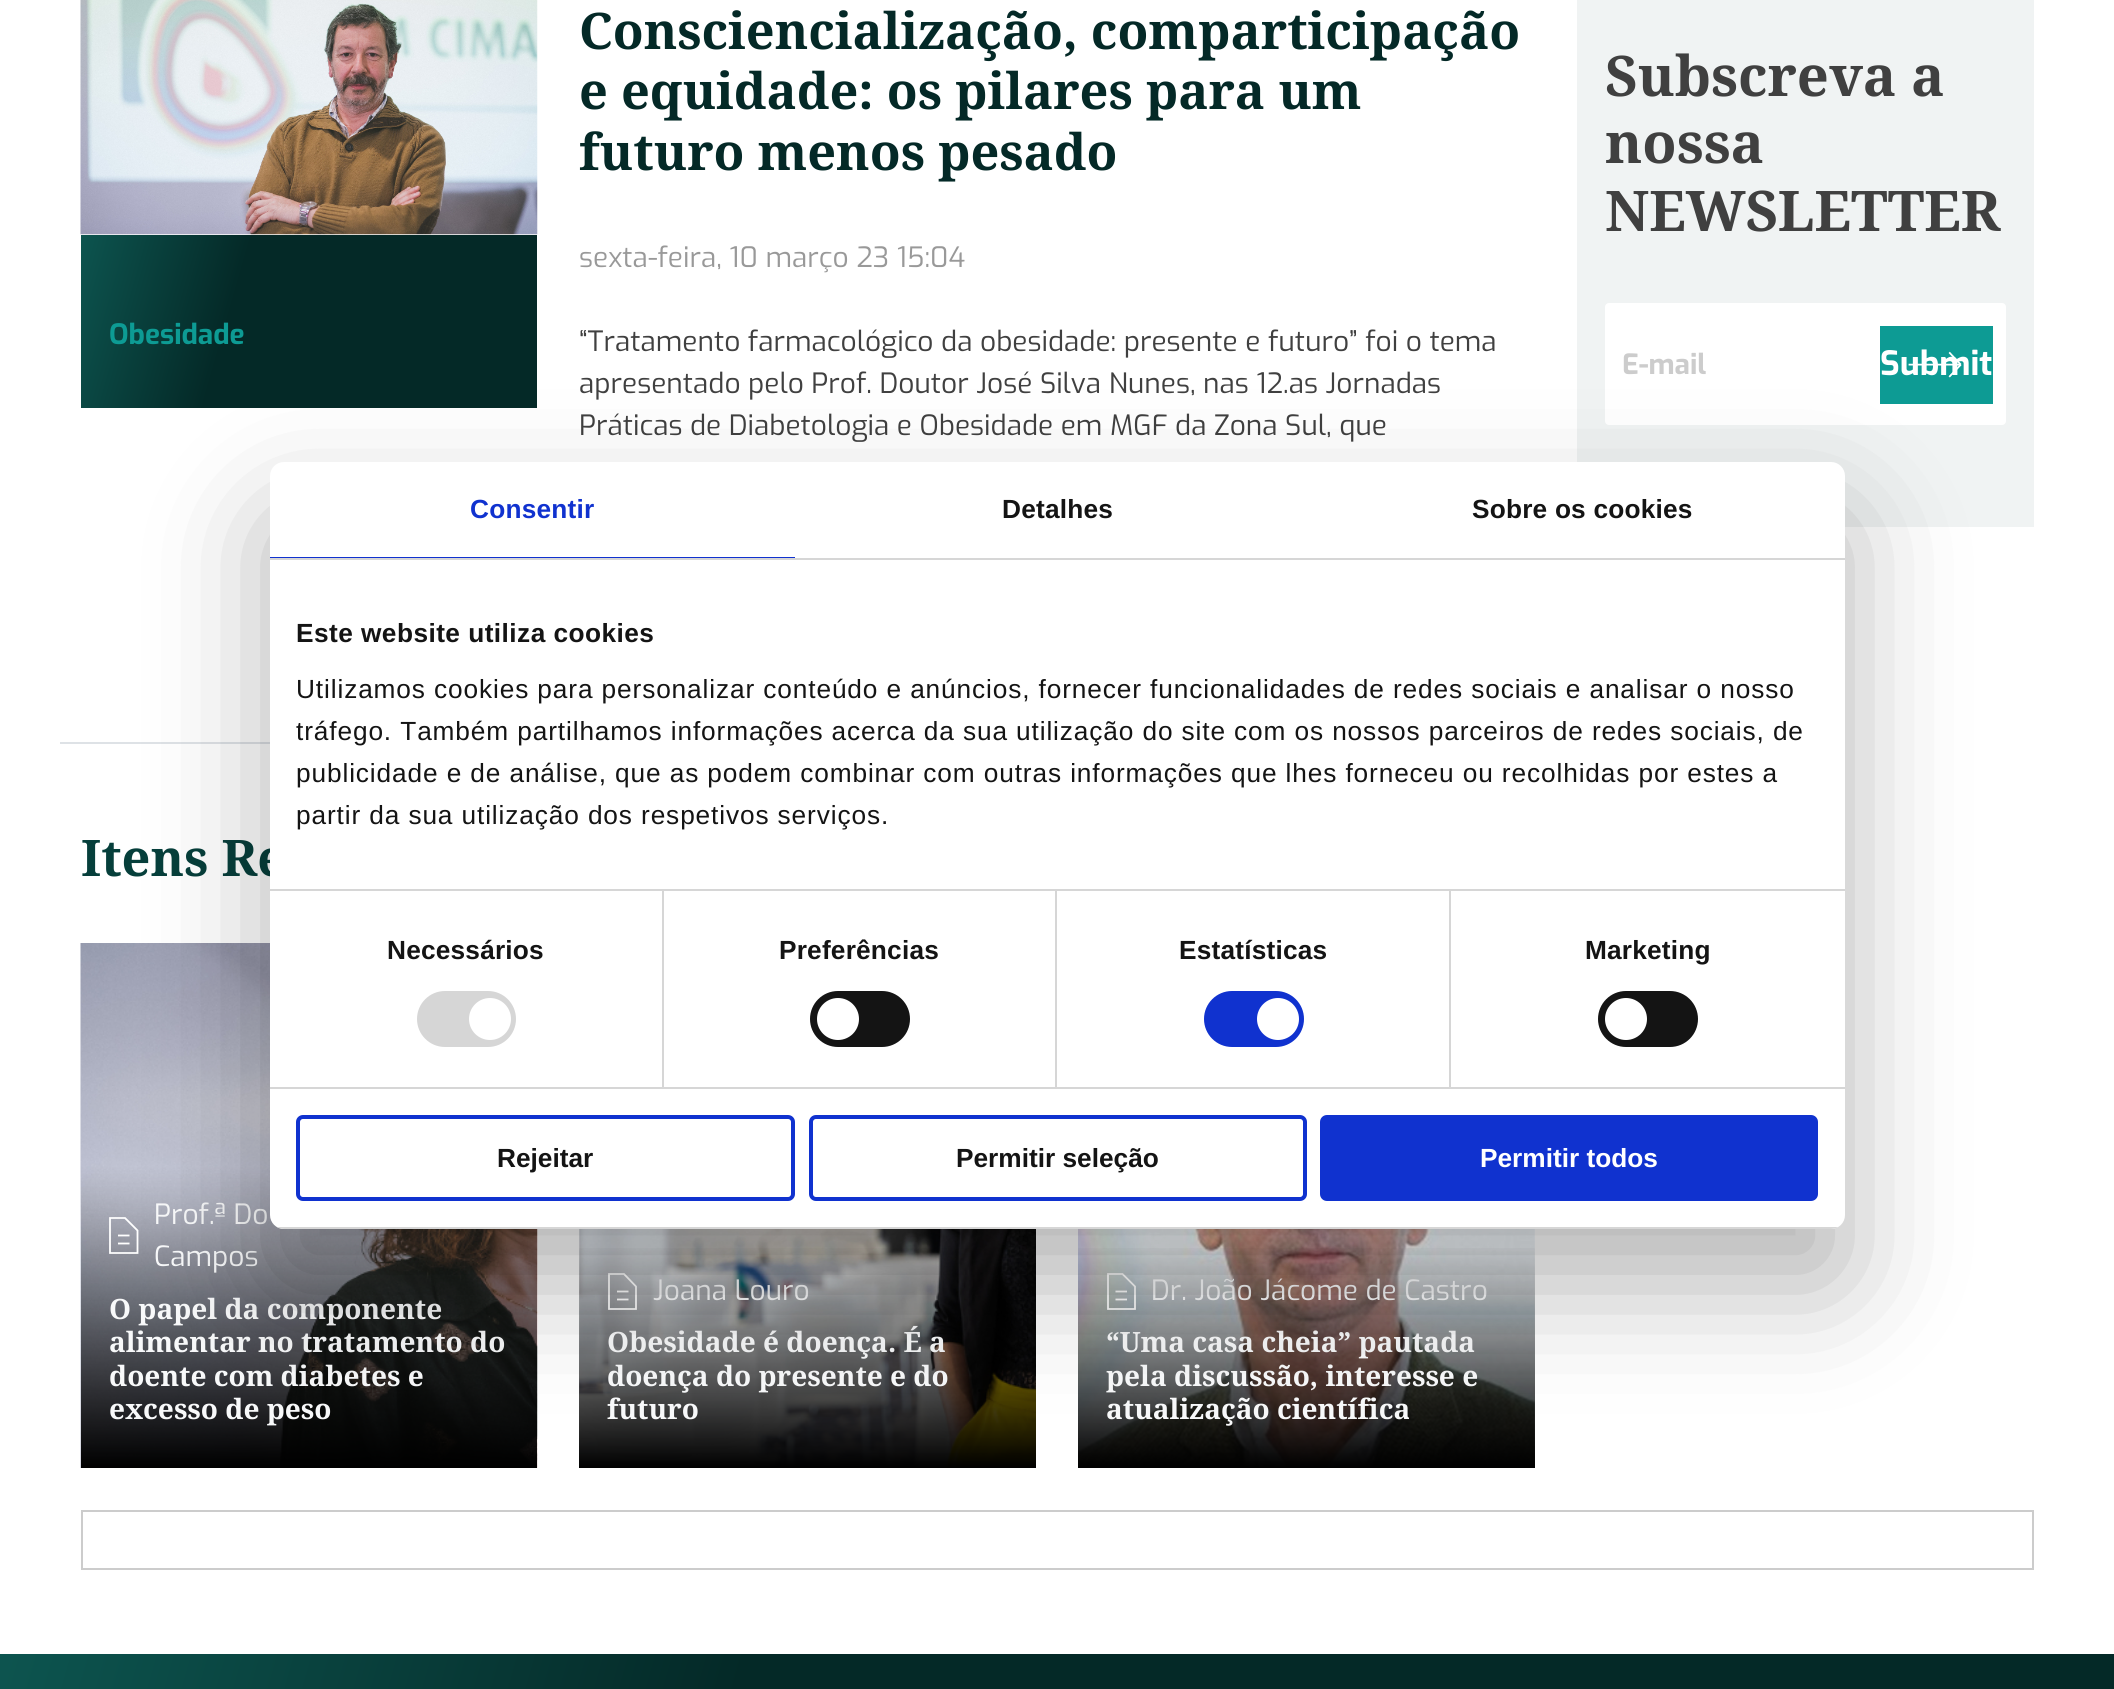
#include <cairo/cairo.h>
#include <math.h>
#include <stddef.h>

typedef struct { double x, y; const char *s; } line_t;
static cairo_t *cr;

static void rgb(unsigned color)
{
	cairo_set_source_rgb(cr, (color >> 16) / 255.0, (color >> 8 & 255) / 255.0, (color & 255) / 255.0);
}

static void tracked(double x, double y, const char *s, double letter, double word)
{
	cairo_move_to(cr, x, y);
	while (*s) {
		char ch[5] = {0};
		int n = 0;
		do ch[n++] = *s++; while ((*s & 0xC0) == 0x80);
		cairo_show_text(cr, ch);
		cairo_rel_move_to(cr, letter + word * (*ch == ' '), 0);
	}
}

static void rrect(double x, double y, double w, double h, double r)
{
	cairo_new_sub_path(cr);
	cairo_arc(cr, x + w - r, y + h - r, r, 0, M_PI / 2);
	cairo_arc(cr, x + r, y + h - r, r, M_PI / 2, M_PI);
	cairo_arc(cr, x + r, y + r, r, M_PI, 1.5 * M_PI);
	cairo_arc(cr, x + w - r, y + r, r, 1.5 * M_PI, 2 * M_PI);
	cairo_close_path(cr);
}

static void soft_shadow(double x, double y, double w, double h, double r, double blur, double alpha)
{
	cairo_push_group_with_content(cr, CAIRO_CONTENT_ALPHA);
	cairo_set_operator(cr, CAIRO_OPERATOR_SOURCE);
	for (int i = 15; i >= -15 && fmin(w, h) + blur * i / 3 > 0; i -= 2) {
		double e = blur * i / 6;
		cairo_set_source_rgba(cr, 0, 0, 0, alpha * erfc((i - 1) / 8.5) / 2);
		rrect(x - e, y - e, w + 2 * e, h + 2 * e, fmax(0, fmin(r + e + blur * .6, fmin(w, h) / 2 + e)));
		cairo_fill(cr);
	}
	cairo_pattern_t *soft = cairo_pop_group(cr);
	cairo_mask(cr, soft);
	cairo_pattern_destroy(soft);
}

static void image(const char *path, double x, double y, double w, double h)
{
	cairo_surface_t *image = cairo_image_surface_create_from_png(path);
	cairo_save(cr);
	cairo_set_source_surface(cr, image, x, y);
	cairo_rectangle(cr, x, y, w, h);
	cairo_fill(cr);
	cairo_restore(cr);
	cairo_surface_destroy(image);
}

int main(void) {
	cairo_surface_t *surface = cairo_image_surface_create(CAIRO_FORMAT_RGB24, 2114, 1689);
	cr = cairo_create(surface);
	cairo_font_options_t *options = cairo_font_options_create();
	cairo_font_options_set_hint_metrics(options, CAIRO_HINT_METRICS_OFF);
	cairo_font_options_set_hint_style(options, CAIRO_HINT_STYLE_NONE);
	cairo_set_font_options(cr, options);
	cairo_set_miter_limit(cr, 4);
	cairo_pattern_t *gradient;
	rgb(0xffffff);
	cairo_paint(cr);
	rgb(0xdee2e6);
	cairo_rectangle(cr, 60, 742, 210, 2);
	cairo_fill(cr);
	image("img/1.png", 80, 0, 458, 235);
	gradient = cairo_pattern_create_linear(543, 388, 36, 243);
	cairo_pattern_add_color_stop_rgba(gradient, 0.61, 0.016, 0.161, 0.153, 1);
	cairo_pattern_add_color_stop_rgba(gradient, 1, 0.059, 0.373, 0.349, 1);
	cairo_set_source(cr, gradient);
	cairo_pattern_destroy(gradient);
	cairo_rectangle(cr, 81, 235, 456, 173);
	cairo_fill(cr);
	image("img/2.png", 80, 943, 458, 525);
	cairo_new_path(cr);
	cairo_move_to(cr, 118, 1235.5);
	cairo_line_to(cr, 129.5, 1235.5);
	cairo_move_to(cr, 118, 1243.5);
	cairo_line_to(cr, 129.5, 1243.5);
	cairo_move_to(cr, 110, 1253);
	cairo_line_to(cr, 137.5, 1253);
	cairo_line_to(cr, 137.5, 1230.5);
	cairo_line_to(cr, 125, 1218);
	cairo_line_to(cr, 110, 1218);
	cairo_close_path(cr);
	rgb(0xffffff);
	cairo_set_line_width(cr, 1.8);
	cairo_stroke(cr);
	image("img/3.png", 579, 1229, 457, 238);
	gradient = cairo_pattern_create_linear(808, 1243, 808, 1468);
	cairo_pattern_add_color_stop_rgba(gradient, 0, 0, 0, 0, 0);
	cairo_pattern_add_color_stop_rgba(gradient, 1, 0, 0, 0, 1);
	cairo_set_source(cr, gradient);
	cairo_pattern_destroy(gradient);
	cairo_rectangle(cr, 579, 1248, 457, 220);
	cairo_fill(cr);
	cairo_new_path(cr);
	cairo_move_to(cr, 617, 1291.5);
	cairo_line_to(cr, 628.5, 1291.5);
	cairo_move_to(cr, 617, 1299.5);
	cairo_line_to(cr, 628.5, 1299.5);
	cairo_move_to(cr, 609, 1309);
	cairo_line_to(cr, 636, 1309);
	cairo_line_to(cr, 636, 1286.5);
	cairo_line_to(cr, 624, 1274);
	cairo_line_to(cr, 609, 1274);
	cairo_close_path(cr);
	rgb(0xffffff);
	cairo_stroke(cr);
	image("img/4.png", 1078, 1229, 457, 238);
	gradient = cairo_pattern_create_linear(1306, 1243, 1306, 1468);
	cairo_pattern_add_color_stop_rgba(gradient, 0, 0, 0, 0, 0);
	cairo_pattern_add_color_stop_rgba(gradient, 1, 0, 0, 0, 1);
	cairo_set_source(cr, gradient);
	cairo_pattern_destroy(gradient);
	cairo_rectangle(cr, 1078, 1248, 457, 220);
	cairo_fill(cr);
	cairo_new_path(cr);
	cairo_move_to(cr, 1115.5, 1291.5);
	cairo_line_to(cr, 1127, 1291.5);
	cairo_move_to(cr, 1115.5, 1299.5);
	cairo_line_to(cr, 1127, 1299.5);
	cairo_move_to(cr, 1108, 1309);
	cairo_line_to(cr, 1135, 1309);
	cairo_line_to(cr, 1135, 1286.5);
	cairo_line_to(cr, 1122.5, 1274);
	cairo_line_to(cr, 1108, 1274);
	cairo_close_path(cr);
	rgb(0xffffff);
	cairo_stroke(cr);
	rgb(0xf0f3f3);
	cairo_rectangle(cr, 1577, 0, 457, 527);
	cairo_fill(cr);
	rgb(0xffffff);
	rrect(1605, 303, 401, 122, 4);
	cairo_fill(cr);
	rgb(0x0d9b94);
	cairo_rectangle(cr, 1880, 326, 113, 78);
	cairo_fill(cr);
	cairo_rectangle(cr, 82, 1511, 1951, 58);
	rgb(0xcccccc);
	cairo_set_line_width(cr, 2);
	cairo_stroke(cr);
	gradient = cairo_pattern_create_linear(2075, 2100, -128, 1471);
	cairo_pattern_add_color_stop_rgba(gradient, 0.61, 0.016, 0.161, 0.153, 1);
	cairo_pattern_add_color_stop_rgba(gradient, 1, 0.059, 0.373, 0.349, 1);
	cairo_set_source(cr, gradient);
	cairo_pattern_destroy(gradient);
	cairo_rectangle(cr, 0, 1654, 2114, 35);
	cairo_fill(cr);
	cairo_select_font_face(cr, "Exo", CAIRO_FONT_SLANT_NORMAL, CAIRO_FONT_WEIGHT_BOLD);
	cairo_set_font_size(cr, 28);
	rgb(0x0d9b94);
	cairo_move_to(cr, 109, 344);
	cairo_show_text(cr, "Obesidade");
	cairo_select_font_face(cr, "Noto Serif", CAIRO_FONT_SLANT_NORMAL, CAIRO_FONT_WEIGHT_BOLD);
	cairo_set_font_size(cr, 50.4);
	rgb(0x042927);
	{
		static const line_t items[] = {
			{579, 49, "Consciencialização, comparticipação"},
			{579, 109, "e equidade: os pilares para um"},
			{579, 170, "futuro menos pesado"},
		};
		for (size_t i = 0; i < sizeof items / sizeof *items; i++) {
			cairo_move_to(cr, items[i].x, items[i].y);
			cairo_show_text(cr, items[i].s);
		}
	}
	cairo_select_font_face(cr, "Exo", CAIRO_FONT_SLANT_NORMAL, CAIRO_FONT_WEIGHT_NORMAL);
	cairo_set_font_size(cr, 28);
	rgb(0x999999);
	cairo_move_to(cr, 579, 267);
	cairo_show_text(cr, "sexta-feira, 10 março 23 15:04");
	rgb(0x404040);
	{
		static const line_t items[] = {
			{579, 351, "“Tratamento farmacológico da obesidade: presente e futuro” foi o tema"},
			{579, 393, "apresentado pelo Prof. Doutor José Silva Nunes, nas 12.as Jornadas"},
			{579, 435, "Práticas de Diabetologia e Obesidade em MGF da Zona Sul, que"},
		};
		for (size_t i = 0; i < sizeof items / sizeof *items; i++) {
			cairo_move_to(cr, items[i].x, items[i].y);
			cairo_show_text(cr, items[i].s);
		}
	}
	cairo_select_font_face(cr, "Noto Serif", CAIRO_FONT_SLANT_NORMAL, CAIRO_FONT_WEIGHT_BOLD);
	cairo_set_font_size(cr, 50.4);
	rgb(0x063f3b);
	cairo_move_to(cr, 81, 876);
	cairo_show_text(cr, "Itens Re");
	cairo_select_font_face(cr, "Exo", CAIRO_FONT_SLANT_NORMAL, CAIRO_FONT_WEIGHT_NORMAL);
	cairo_set_font_size(cr, 28);
	rgb(0xf8f9fa);
	cairo_move_to(cr, 154, 1224);
	cairo_show_text(cr, "Prof.ª Do");
	cairo_move_to(cr, 154, 1266);
	cairo_show_text(cr, "Campos");
	cairo_select_font_face(cr, "Noto Serif", CAIRO_FONT_SLANT_NORMAL, CAIRO_FONT_WEIGHT_BOLD);
	{
		static const line_t items[] = {
			{109, 1319, "O papel da componente"},
			{109, 1352, "alimentar no tratamento do"},
			{109, 1386, "doente com diabetes e"},
			{109, 1419, "excesso de peso"},
		};
		for (size_t i = 0; i < sizeof items / sizeof *items; i++) {
			cairo_move_to(cr, items[i].x, items[i].y);
			cairo_show_text(cr, items[i].s);
		}
	}
	cairo_select_font_face(cr, "Exo", CAIRO_FONT_SLANT_NORMAL, CAIRO_FONT_WEIGHT_NORMAL);
	cairo_move_to(cr, 653, 1300);
	cairo_show_text(cr, "Joana Louro");
	cairo_select_font_face(cr, "Noto Serif", CAIRO_FONT_SLANT_NORMAL, CAIRO_FONT_WEIGHT_BOLD);
	{
		static const line_t items[] = {
			{607, 1352, "Obesidade é doença. É a"},
			{607, 1386, "doença do presente e do"},
			{607, 1419, "futuro"},
		};
		for (size_t i = 0; i < sizeof items / sizeof *items; i++) {
			cairo_move_to(cr, items[i].x, items[i].y);
			cairo_show_text(cr, items[i].s);
		}
	}
	cairo_select_font_face(cr, "Exo", CAIRO_FONT_SLANT_NORMAL, CAIRO_FONT_WEIGHT_NORMAL);
	cairo_move_to(cr, 1151, 1300);
	cairo_show_text(cr, "Dr. João Jácome de Castro");
	cairo_select_font_face(cr, "Noto Serif", CAIRO_FONT_SLANT_NORMAL, CAIRO_FONT_WEIGHT_BOLD);
	{
		static const line_t items[] = {
			{1106, 1352, "“Uma casa cheia” pautada"},
			{1106, 1386, "pela discussão, interesse e"},
			{1106, 1419, "atualização científica"},
		};
		for (size_t i = 0; i < sizeof items / sizeof *items; i++) {
			cairo_move_to(cr, items[i].x, items[i].y);
			cairo_show_text(cr, items[i].s);
		}
	}
	cairo_set_font_size(cr, 56);
	rgb(0x404040);
	{
		static const line_t items[] = {
			{1605, 96, "Subscreva a"},
			{1605, 163, "nossa"},
			{1605, 231, "NEWSLETTER"},
		};
		for (size_t i = 0; i < sizeof items / sizeof *items; i++) {
			cairo_move_to(cr, items[i].x, items[i].y);
			cairo_show_text(cr, items[i].s);
		}
	}
	cairo_select_font_face(cr, "Exo", CAIRO_FONT_SLANT_NORMAL, CAIRO_FONT_WEIGHT_BOLD);
	cairo_set_font_size(cr, 28);
	rgb(0xcccccc);
	cairo_move_to(cr, 1622, 374);
	cairo_show_text(cr, "E-mail");
	cairo_set_font_size(cr, 33.5);
	rgb(0xffffff);
	cairo_move_to(cr, 1880, 375);
	cairo_show_text(cr, "Submit");
	image("img/5.png", 1908, 351, 54, 27);
	rgb(0x000000);
	soft_shadow(270, 518, 1575, 767, 14, 59.5, 0.3);
	rgb(0xffffff);
	rrect(270, 462, 1575, 767, 14);
	cairo_fill(cr);
	rgb(0xd6d6d6);
	cairo_rectangle(cr, 270, 558, 1575, 2);
	cairo_fill(cr);
	rgb(0x1032cf);
	cairo_rectangle(cr, 270, 557, 525, 1);
	cairo_fill(cr);
	cairo_select_font_face(cr, "Liberation Sans", CAIRO_FONT_SLANT_NORMAL, CAIRO_FONT_WEIGHT_BOLD);
	cairo_set_font_size(cr, 26.25);
	tracked(470, 518, "Consentir", 0.2, 0);
	rgb(0x141414);
	tracked(1002, 518, "Detalhes", 0.2, 0);
	tracked(1472, 518, "Sobre os cookies", 0.2, 0);
	rgb(0xd6d6d6);
	cairo_rectangle(cr, 270, 889, 1575, 2);
	cairo_fill(cr);
	rgb(0x141414);
	tracked(296, 642, "Este website utiliza cookies", 0.45, 0);
	cairo_select_font_face(cr, "Liberation Sans", CAIRO_FONT_SLANT_NORMAL, CAIRO_FONT_WEIGHT_NORMAL);
	{
		static const line_t items[] = {
			{296, 698, "Utilizamos cookies para personalizar conteúdo e anúncios, fornecer funcionalidades de redes sociais e analisar o nosso"},
			{296, 740, "tráfego. Também partilhamos informações acerca da sua utilização do site com os nossos parceiros de redes sociais, de"},
			{296, 782, "publicidade e de análise, que as podem combinar com outras informações que lhes forneceu ou recolhidas por estes a"},
			{296, 824, "partir da sua utilização dos respetivos serviços."},
		};
		for (size_t i = 0; i < sizeof items / sizeof *items; i++) {
			tracked(items[i].x, items[i].y, items[i].s, 0.88, 0);
		}
	}
	rgb(0xd6d6d6);
	cairo_rectangle(cr, 270, 1087, 1575, 2);
	cairo_fill(cr);
	cairo_rectangle(cr, 662, 891, 2, 196);
	cairo_fill(cr);
	cairo_select_font_face(cr, "Liberation Sans", CAIRO_FONT_SLANT_NORMAL, CAIRO_FONT_WEIGHT_BOLD);
	rgb(0x141414);
	tracked(387, 959, "Necessários", 0.2, 0);
	rgb(0xd6d6d6);
	rrect(417, 991, 99, 56, 28);
	cairo_fill(cr);
	rgb(0xffffff);
	cairo_arc(cr, 490, 1019, 21, 0, 2 * M_PI);
	cairo_fill(cr);
	rgb(0xd6d6d6);
	cairo_rectangle(cr, 1055, 891, 2, 196);
	cairo_fill(cr);
	rgb(0x141414);
	tracked(779, 959, "Preferências", 0.2, 0);
	rrect(810, 991, 100, 56, 28);
	cairo_fill(cr);
	rgb(0xffffff);
	cairo_arc(cr, 838, 1019, 21, 0, 2 * M_PI);
	cairo_fill(cr);
	rgb(0xd6d6d6);
	cairo_rectangle(cr, 1449, 891, 2, 196);
	cairo_fill(cr);
	rgb(0x141414);
	tracked(1179, 959, "Estatísticas", 0.2, 0);
	rgb(0x1032cf);
	rrect(1204, 991, 100, 56, 28);
	cairo_fill(cr);
	rgb(0xffffff);
	cairo_arc(cr, 1278, 1019, 21, 0, 2 * M_PI);
	cairo_fill(cr);
	rgb(0x141414);
	tracked(1585, 959, "Marketing", 0.2, 0);
	rrect(1598, 991, 100, 56, 28);
	cairo_fill(cr);
	rgb(0xffffff);
	cairo_arc(cr, 1626, 1019, 21, 0, 2 * M_PI);
	cairo_fill(cr);
	cairo_save(cr);
	rrect(270, 462, 1575, 767, 14);
	cairo_clip(cr);
	rgb(0xd6d6d6);
	cairo_rectangle(cr, 270, 1227, 1575, 2);
	cairo_fill(cr);
	cairo_restore(cr);
	rrect(298, 1117, 495, 82, 5);
	rgb(0x1032cf);
	cairo_set_line_width(cr, 4);
	cairo_stroke(cr);
	rgb(0x141414);
	cairo_move_to(cr, 497, 1167);
	cairo_show_text(cr, "Rejeitar");
	rrect(811, 1117, 494, 82, 5);
	rgb(0x1032cf);
	cairo_stroke(cr);
	rgb(0x141414);
	cairo_move_to(cr, 956, 1167);
	cairo_show_text(cr, "Permitir seleção");
	rgb(0x1032cf);
	rrect(1322, 1117, 494, 82, 5);
	cairo_fill_preserve(cr);
	cairo_stroke(cr);
	rgb(0xffffff);
	cairo_move_to(cr, 1480, 1167);
	cairo_show_text(cr, "Permitir todos");
	cairo_surface_write_to_png(surface, "page.png");
	cairo_font_options_destroy(options);
	cairo_destroy(cr);
	cairo_surface_destroy(surface);
	return 0;
}
